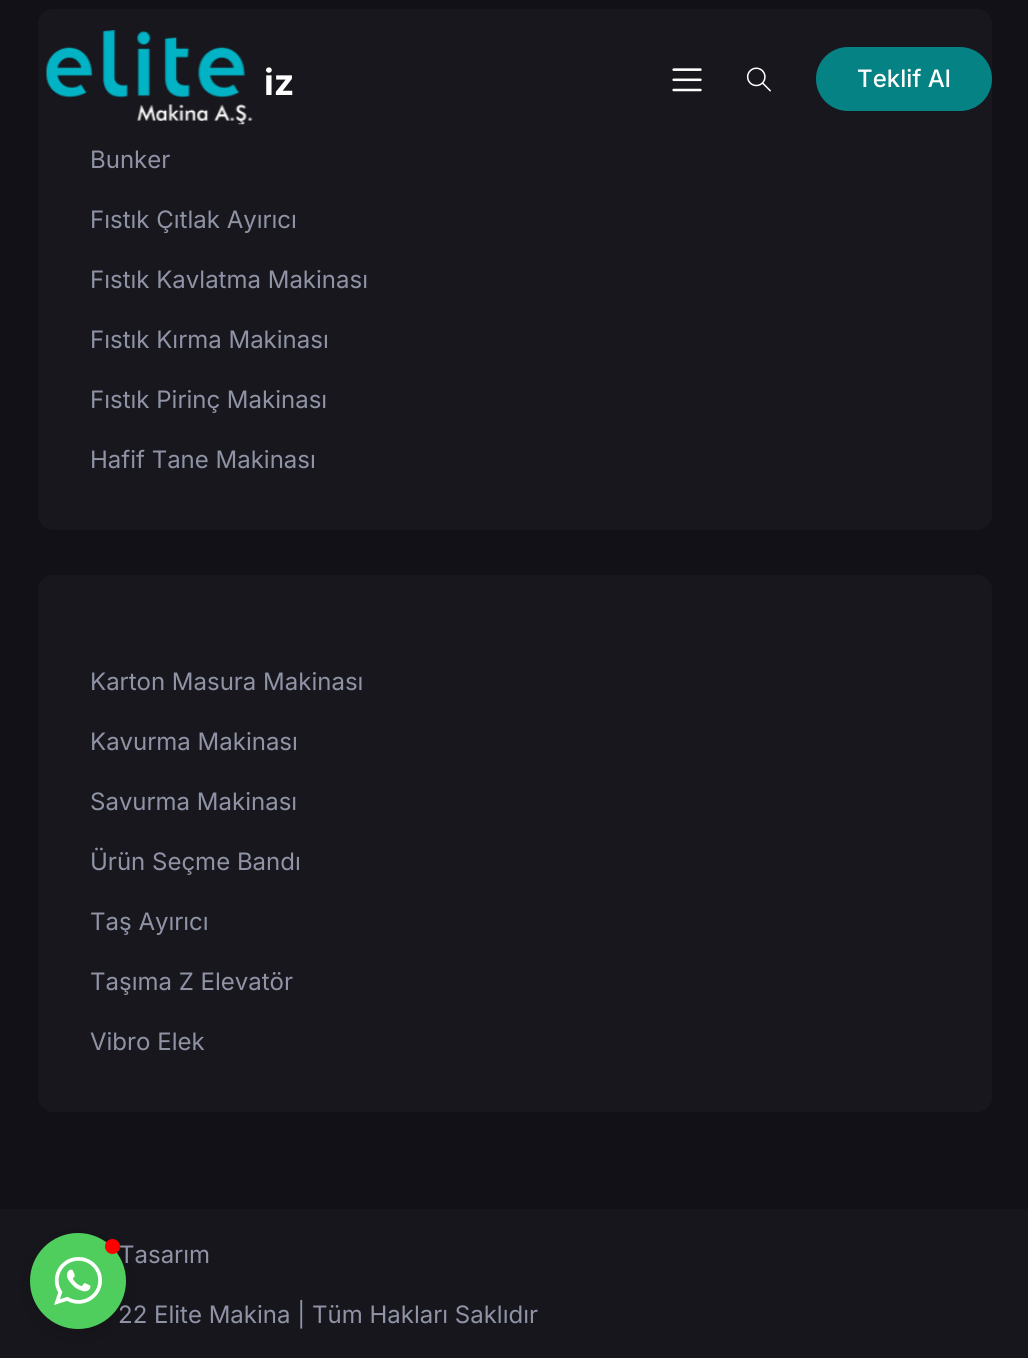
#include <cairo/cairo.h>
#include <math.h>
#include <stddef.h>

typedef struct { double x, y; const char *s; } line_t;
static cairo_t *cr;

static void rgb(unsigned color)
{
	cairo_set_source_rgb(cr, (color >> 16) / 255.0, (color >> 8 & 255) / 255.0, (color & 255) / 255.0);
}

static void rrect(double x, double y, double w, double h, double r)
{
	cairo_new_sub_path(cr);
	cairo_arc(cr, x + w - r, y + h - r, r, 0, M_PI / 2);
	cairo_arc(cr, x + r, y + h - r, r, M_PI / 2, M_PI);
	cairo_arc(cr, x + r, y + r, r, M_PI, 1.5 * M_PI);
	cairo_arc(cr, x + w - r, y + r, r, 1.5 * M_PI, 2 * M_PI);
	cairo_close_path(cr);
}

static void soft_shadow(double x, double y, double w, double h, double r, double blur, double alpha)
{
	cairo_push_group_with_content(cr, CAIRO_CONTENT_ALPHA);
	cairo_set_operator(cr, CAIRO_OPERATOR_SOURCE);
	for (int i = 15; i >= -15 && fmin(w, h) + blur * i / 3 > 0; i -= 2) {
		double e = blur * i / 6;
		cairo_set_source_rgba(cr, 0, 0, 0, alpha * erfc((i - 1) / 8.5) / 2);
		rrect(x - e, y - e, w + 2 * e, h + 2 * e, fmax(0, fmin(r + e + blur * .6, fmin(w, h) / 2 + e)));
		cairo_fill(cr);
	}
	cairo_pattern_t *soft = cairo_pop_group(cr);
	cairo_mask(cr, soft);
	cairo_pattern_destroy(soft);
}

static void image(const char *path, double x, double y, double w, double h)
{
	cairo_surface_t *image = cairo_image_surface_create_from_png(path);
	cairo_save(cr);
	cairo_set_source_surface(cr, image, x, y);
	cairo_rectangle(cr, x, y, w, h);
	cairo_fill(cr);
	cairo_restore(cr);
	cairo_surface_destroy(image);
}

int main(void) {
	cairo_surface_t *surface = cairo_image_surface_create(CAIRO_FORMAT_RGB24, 1028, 1358);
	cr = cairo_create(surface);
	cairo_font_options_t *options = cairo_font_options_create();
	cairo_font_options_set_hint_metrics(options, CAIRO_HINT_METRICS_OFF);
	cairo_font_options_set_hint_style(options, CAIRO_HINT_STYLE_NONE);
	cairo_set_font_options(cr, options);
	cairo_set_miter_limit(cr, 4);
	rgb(0x111117);
	cairo_paint(cr);
	rgb(0x17171d);
	rrect(38, 9, 954, 521, 15);
	cairo_fill(cr);
	rrect(38, 575, 954, 537, 15);
	cairo_fill(cr);
	rgb(0x16161c);
	cairo_rectangle(cr, 0, 1209, 1028, 149);
	cairo_fill(cr);
	image("img/1.png", 46, 30, 207, 95);
	image("img/2.png", 672, 68, 30, 24);
	image("img/3.png", 746, 67, 25, 25);
	rgb(0x058283);
	rrect(817.5, 48.5, 173, 61, 30.5);
	cairo_fill_preserve(cr);
	cairo_set_line_width(cr, 3);
	cairo_stroke(cr);
	rgb(0x000000);
	soft_shadow(30, 1238, 96, 96, 48, 9, 0.15);
	cairo_select_font_face(cr, "Inter", CAIRO_FONT_SLANT_NORMAL, CAIRO_FONT_WEIGHT_BOLD);
	cairo_set_font_size(cr, 36);
	rgb(0xffffff);
	cairo_move_to(cr, 264, 95);
	cairo_show_text(cr, "iz");
	cairo_select_font_face(cr, "Inter", CAIRO_FONT_SLANT_NORMAL, CAIRO_FONT_WEIGHT_NORMAL);
	cairo_set_font_size(cr, 24);
	rgb(0x8f93a5);
	{
		static const line_t items[] = {
			{90, 168, "Bunker"},
			{90, 228, "Fıstık Çıtlak Ayırıcı"},
			{90, 288, "Fıstık Kavlatma Makinası"},
			{90, 348, "Fıstık Kırma Makinası"},
			{90, 408, "Fıstık Pirinç Makinası"},
			{90, 468, "Hafif Tane Makinası"},
			{90, 690, "Karton Masura Makinası"},
			{90, 750, "Kavurma Makinası"},
			{90, 810, "Savurma Makinası"},
			{90, 870, "Ürün Seçme Bandı"},
			{90, 930, "Taş Ayırıcı"},
			{90, 990, "Taşıma Z Elevatör"},
			{90, 1050, "Vibro Elek"},
			{119, 1263, "Tasarım"},
			{118, 1323, "22 Elite Makina | Tüm Hakları Saklıdır"},
		};
		for (size_t i = 0; i < sizeof items / sizeof *items; i++) {
			cairo_move_to(cr, items[i].x, items[i].y);
			cairo_show_text(cr, items[i].s);
		}
	}
	cairo_select_font_face(cr, "Inter Medium", CAIRO_FONT_SLANT_NORMAL, CAIRO_FONT_WEIGHT_NORMAL);
	rgb(0xffffff);
	cairo_move_to(cr, 857, 87);
	cairo_show_text(cr, "Teklif Al");
	rgb(0x4fce5d);
	cairo_new_path(cr);
	cairo_arc(cr, 78, 1281, 48, 0, 2 * M_PI);
	cairo_fill(cr);
	rgb(0xff0000);
	cairo_arc(cr, 112.5, 1246.5, 7.5, 0, 2 * M_PI);
	cairo_fill(cr);
	image("img/4.png", 54, 1257, 48, 48);
	cairo_surface_write_to_png(surface, "page.png");
	cairo_font_options_destroy(options);
	cairo_destroy(cr);
	cairo_surface_destroy(surface);
	return 0;
}
